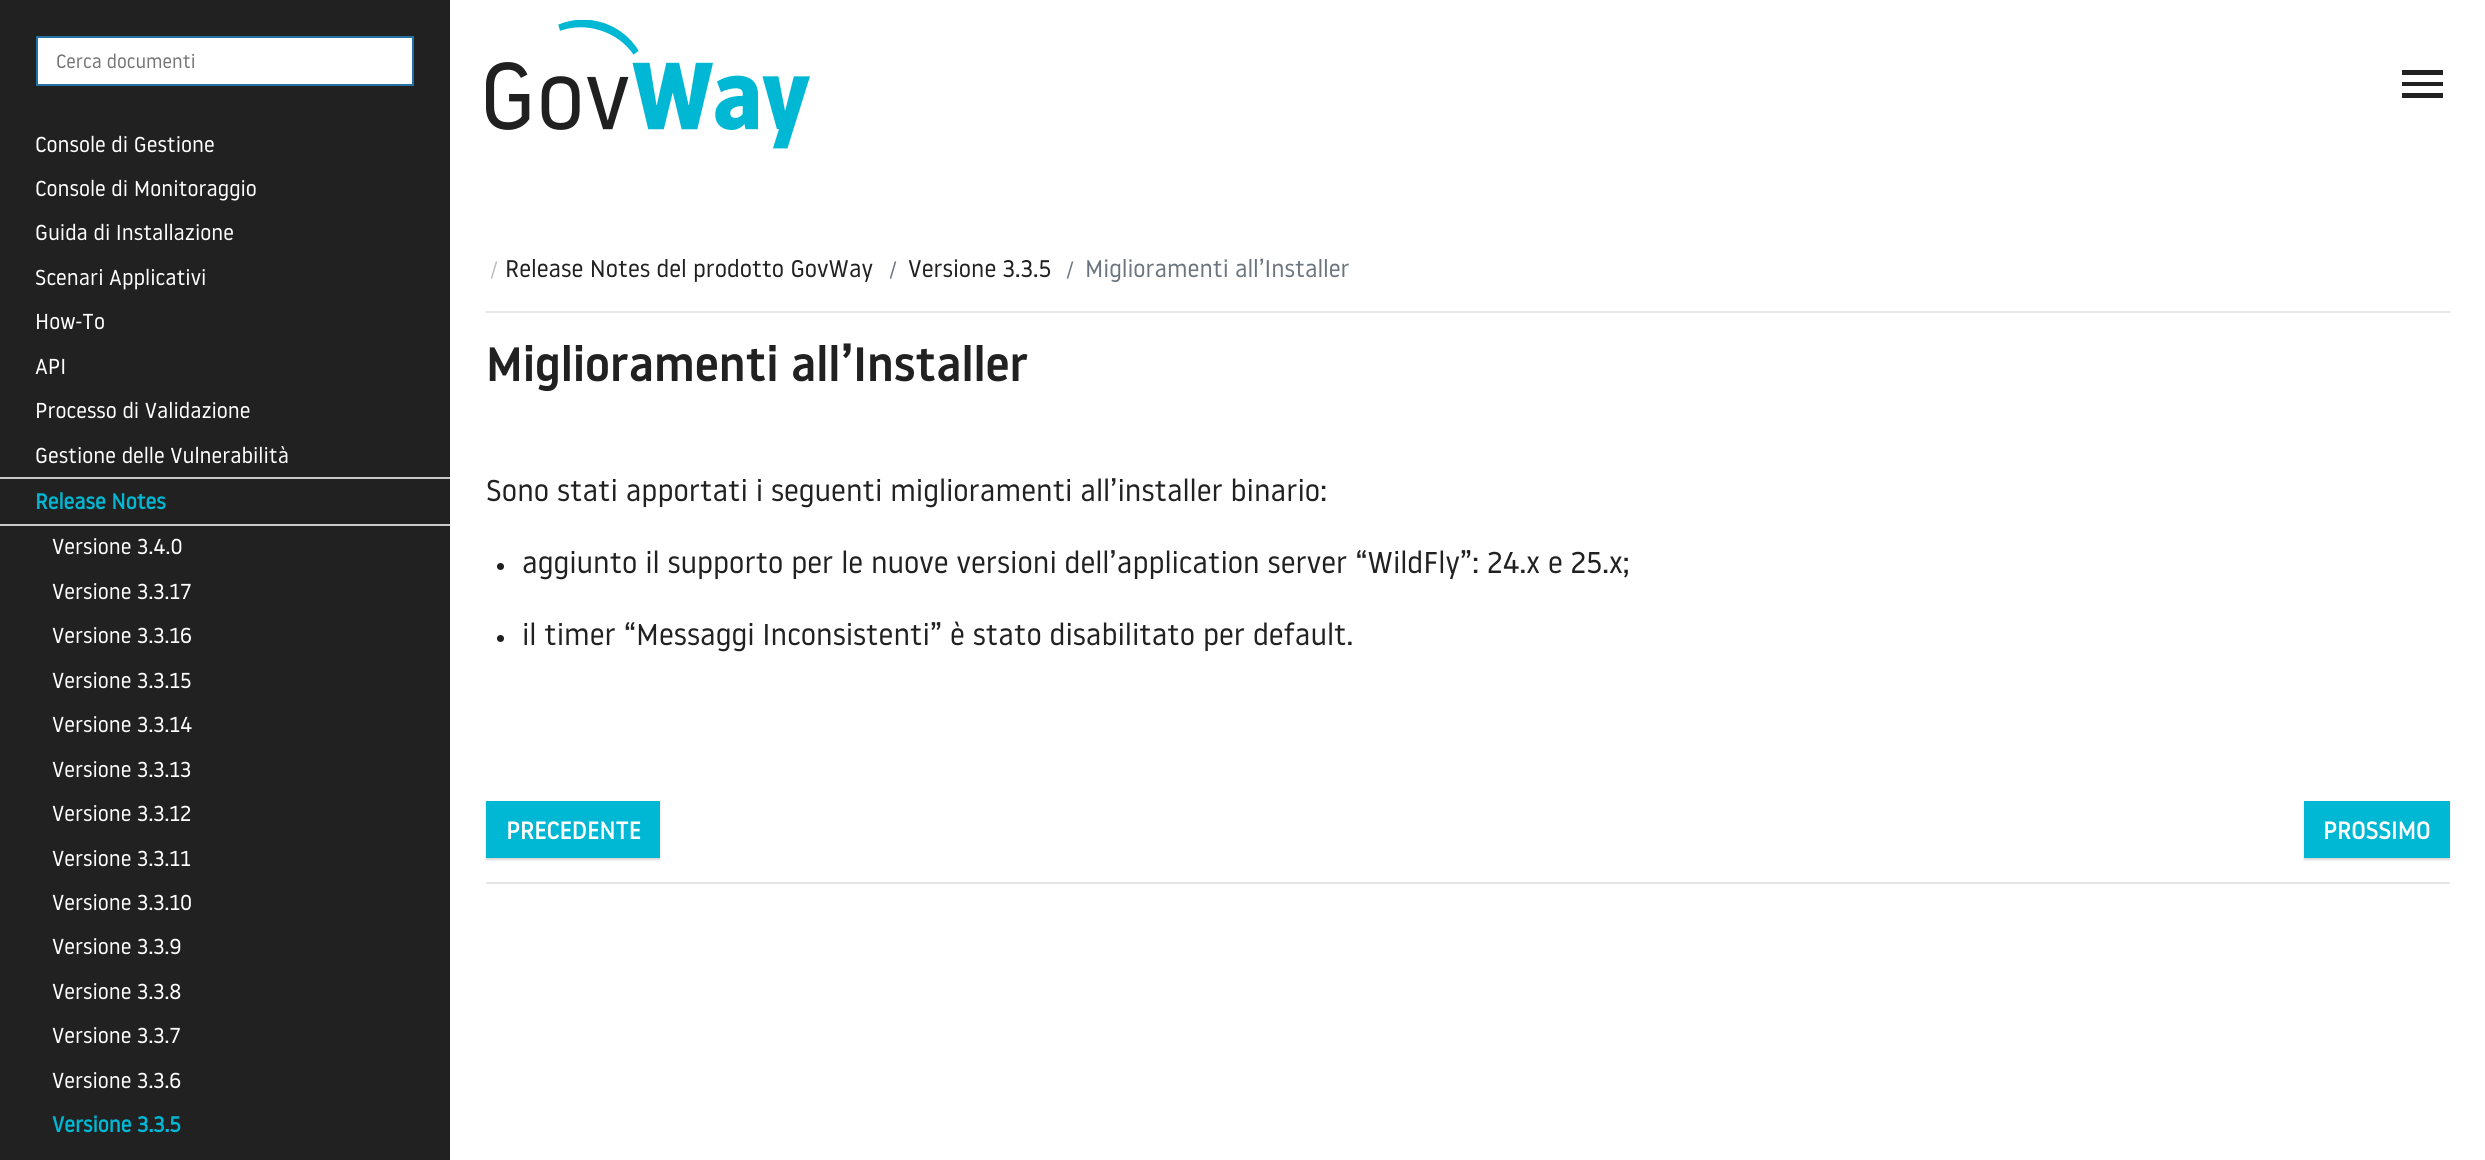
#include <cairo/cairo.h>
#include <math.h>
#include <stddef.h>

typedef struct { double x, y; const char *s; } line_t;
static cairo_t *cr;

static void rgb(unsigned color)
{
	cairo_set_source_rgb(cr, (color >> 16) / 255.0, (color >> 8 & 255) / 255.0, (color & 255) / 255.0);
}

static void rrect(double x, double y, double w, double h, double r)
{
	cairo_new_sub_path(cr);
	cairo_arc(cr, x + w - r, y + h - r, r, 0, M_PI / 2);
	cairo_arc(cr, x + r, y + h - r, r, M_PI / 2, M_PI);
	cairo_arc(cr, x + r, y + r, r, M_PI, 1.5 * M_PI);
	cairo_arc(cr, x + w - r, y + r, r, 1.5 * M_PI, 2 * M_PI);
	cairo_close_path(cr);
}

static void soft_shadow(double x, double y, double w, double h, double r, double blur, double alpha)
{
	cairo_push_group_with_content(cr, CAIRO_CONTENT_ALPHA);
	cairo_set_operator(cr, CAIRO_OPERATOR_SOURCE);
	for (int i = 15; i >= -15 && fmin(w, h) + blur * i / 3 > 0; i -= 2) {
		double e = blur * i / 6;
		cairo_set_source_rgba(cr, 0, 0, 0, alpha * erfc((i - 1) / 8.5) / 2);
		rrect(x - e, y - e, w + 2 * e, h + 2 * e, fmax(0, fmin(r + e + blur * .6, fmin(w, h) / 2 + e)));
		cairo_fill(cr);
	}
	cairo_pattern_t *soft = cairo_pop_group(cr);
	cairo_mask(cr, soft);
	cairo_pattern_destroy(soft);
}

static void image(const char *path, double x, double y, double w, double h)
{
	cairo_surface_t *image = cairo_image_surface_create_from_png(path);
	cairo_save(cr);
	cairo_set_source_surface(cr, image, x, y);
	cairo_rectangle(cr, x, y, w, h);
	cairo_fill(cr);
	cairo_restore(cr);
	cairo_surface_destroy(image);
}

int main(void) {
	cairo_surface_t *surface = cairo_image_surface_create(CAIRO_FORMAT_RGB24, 2485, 1160);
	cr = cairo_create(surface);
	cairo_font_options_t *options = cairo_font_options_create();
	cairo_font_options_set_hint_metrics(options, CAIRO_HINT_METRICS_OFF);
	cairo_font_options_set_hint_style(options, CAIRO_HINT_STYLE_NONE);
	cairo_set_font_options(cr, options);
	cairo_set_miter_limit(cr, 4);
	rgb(0xffffff);
	cairo_paint(cr);
	rgb(0x212121);
	cairo_rectangle(cr, 0, 0, 450, 1160);
	cairo_fill(cr);
	rgb(0xffffff);
	cairo_rectangle(cr, 37, 37, 376, 48);
	cairo_fill_preserve(cr);
	rgb(0x2472a4);
	cairo_stroke(cr);
	rgb(0xc9c9c9);
	cairo_rectangle(cr, 0, 477, 450, 2);
	cairo_fill(cr);
	cairo_rectangle(cr, 0, 524, 450, 2);
	cairo_fill(cr);
	image("img/1.png", 486, 20, 324, 129);
	rgb(0x212121);
	cairo_new_path(cr);
	cairo_move_to(cr, 2402, 70);
	cairo_line_to(cr, 2443, 70);
	cairo_line_to(cr, 2443, 75);
	cairo_line_to(cr, 2402, 75);
	cairo_close_path(cr);
	cairo_move_to(cr, 2402, 86);
	cairo_line_to(cr, 2402, 82);
	cairo_line_to(cr, 2443, 82);
	cairo_line_to(cr, 2443, 86);
	cairo_close_path(cr);
	cairo_move_to(cr, 2402, 98);
	cairo_line_to(cr, 2402, 93);
	cairo_line_to(cr, 2443, 93);
	cairo_line_to(cr, 2443, 98);
	cairo_close_path(cr);
	cairo_fill(cr);
	rgb(0xe6e6e6);
	cairo_rectangle(cr, 486, 311, 1964, 2);
	cairo_fill(cr);
	rgb(0x212121);
	cairo_arc(cr, 500.5, 566.5, 3.5, 0, 2 * M_PI);
	cairo_fill(cr);
	cairo_arc(cr, 500.5, 638.5, 3.5, 0, 2 * M_PI);
	cairo_fill(cr);
	rgb(0x000000);
	soft_shadow(486, 803, 174, 57, 0, 1, 0.16);
	rgb(0x00b8d4);
	cairo_rectangle(cr, 486, 801, 174, 57);
	cairo_fill(cr);
	rgb(0x000000);
	soft_shadow(2304, 803, 146, 57, 0, 1, 0.16);
	rgb(0x00b8d4);
	cairo_rectangle(cr, 2304, 801, 146, 57);
	cairo_fill(cr);
	rgb(0xe6e6e6);
	cairo_rectangle(cr, 486, 882, 1964, 2);
	cairo_fill(cr);
	cairo_select_font_face(cr, "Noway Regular", CAIRO_FONT_SLANT_NORMAL, CAIRO_FONT_WEIGHT_NORMAL);
	cairo_set_font_size(cr, 19.25);
	rgb(0x757575);
	cairo_move_to(cr, 56, 68);
	cairo_show_text(cr, "Cerca documenti");
	cairo_set_font_size(cr, 21.6);
	rgb(0xffffff);
	{
		static const line_t items[] = {
			{35, 152, "Console di Gestione"},
			{35, 196, "Console di Monitoraggio"},
			{35, 240, "Guida di Installazione"},
			{35, 285, "Scenari Applicativi"},
			{35, 329, "How-To"},
			{35, 374, "API"},
			{35, 418, "Processo di Validazione"},
			{35, 463, "Gestione delle Vulnerabilità"},
		};
		for (size_t i = 0; i < sizeof items / sizeof *items; i++) {
			cairo_move_to(cr, items[i].x, items[i].y);
			cairo_show_text(cr, items[i].s);
		}
	}
	cairo_select_font_face(cr, "Noway Regular", CAIRO_FONT_SLANT_NORMAL, CAIRO_FONT_WEIGHT_BOLD);
	rgb(0x00b8d4);
	cairo_move_to(cr, 35, 509);
	cairo_show_text(cr, "Release Notes");
	cairo_select_font_face(cr, "Noway Regular", CAIRO_FONT_SLANT_NORMAL, CAIRO_FONT_WEIGHT_NORMAL);
	rgb(0xffffff);
	{
		static const line_t items[] = {
			{52, 554, "Versione 3.4.0"},
			{52, 599, "Versione 3.3.17"},
			{52, 643, "Versione 3.3.16"},
			{52, 688, "Versione 3.3.15"},
			{52, 732, "Versione 3.3.14"},
			{52, 777, "Versione 3.3.13"},
			{52, 821, "Versione 3.3.12"},
			{52, 866, "Versione 3.3.11"},
			{52, 910, "Versione 3.3.10"},
			{52, 954, "Versione 3.3.9"},
			{52, 999, "Versione 3.3.8"},
			{52, 1043, "Versione 3.3.7"},
			{52, 1088, "Versione 3.3.6"},
		};
		for (size_t i = 0; i < sizeof items / sizeof *items; i++) {
			cairo_move_to(cr, items[i].x, items[i].y);
			cairo_show_text(cr, items[i].s);
		}
	}
	cairo_select_font_face(cr, "Noway Regular", CAIRO_FONT_SLANT_NORMAL, CAIRO_FONT_WEIGHT_BOLD);
	rgb(0x00b8d4);
	cairo_move_to(cr, 52, 1132);
	cairo_show_text(cr, "Versione 3.3.5");
	cairo_select_font_face(cr, "Noway Regular", CAIRO_FONT_SLANT_NORMAL, CAIRO_FONT_WEIGHT_NORMAL);
	cairo_set_font_size(cr, 20);
	rgb(0xbbbbbb);
	cairo_move_to(cr, 491, 277);
	cairo_show_text(cr, "/");
	cairo_set_font_size(cr, 24);
	rgb(0x212121);
	cairo_move_to(cr, 505, 277);
	cairo_show_text(cr, "Release Notes del prodotto GovWay");
	cairo_set_font_size(cr, 20);
	rgb(0x6c757d);
	cairo_move_to(cr, 890, 277);
	cairo_show_text(cr, "/");
	cairo_set_font_size(cr, 24);
	rgb(0x212121);
	cairo_move_to(cr, 908, 277);
	cairo_show_text(cr, "Versione 3.3.5");
	cairo_set_font_size(cr, 20);
	rgb(0x6c757d);
	cairo_move_to(cr, 1067, 277);
	cairo_show_text(cr, "/");
	cairo_set_font_size(cr, 24);
	cairo_move_to(cr, 1085, 277);
	cairo_show_text(cr, "Miglioramenti all’Installer");
	cairo_select_font_face(cr, "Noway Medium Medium", CAIRO_FONT_SLANT_NORMAL, CAIRO_FONT_WEIGHT_NORMAL);
	cairo_set_font_size(cr, 48);
	rgb(0x212121);
	cairo_move_to(cr, 486, 381);
	cairo_show_text(cr, "Miglioramenti all’Installer");
	cairo_select_font_face(cr, "Noway Regular", CAIRO_FONT_SLANT_NORMAL, CAIRO_FONT_WEIGHT_NORMAL);
	cairo_set_font_size(cr, 30);
	{
		static const line_t items[] = {
			{486, 501, "Sono stati apportati i seguenti miglioramenti all’installer binario:"},
			{522, 573, "aggiunto il supporto per le nuove versioni dell’application server “WildFly”: 24.x e 25.x;"},
			{522, 645, "il timer “Messaggi Inconsistenti” è stato disabilitato per default."},
		};
		for (size_t i = 0; i < sizeof items / sizeof *items; i++) {
			cairo_move_to(cr, items[i].x, items[i].y);
			cairo_show_text(cr, items[i].s);
		}
	}
	cairo_select_font_face(cr, "Noway Regular", CAIRO_FONT_SLANT_NORMAL, CAIRO_FONT_WEIGHT_BOLD);
	cairo_set_font_size(cr, 24);
	rgb(0xffffff);
	cairo_move_to(cr, 506, 839);
	cairo_show_text(cr, "PRECEDENTE");
	cairo_move_to(cr, 2323, 839);
	cairo_show_text(cr, "PROSSIMO");
	cairo_surface_write_to_png(surface, "page.png");
	cairo_font_options_destroy(options);
	cairo_destroy(cr);
	cairo_surface_destroy(surface);
	return 0;
}
